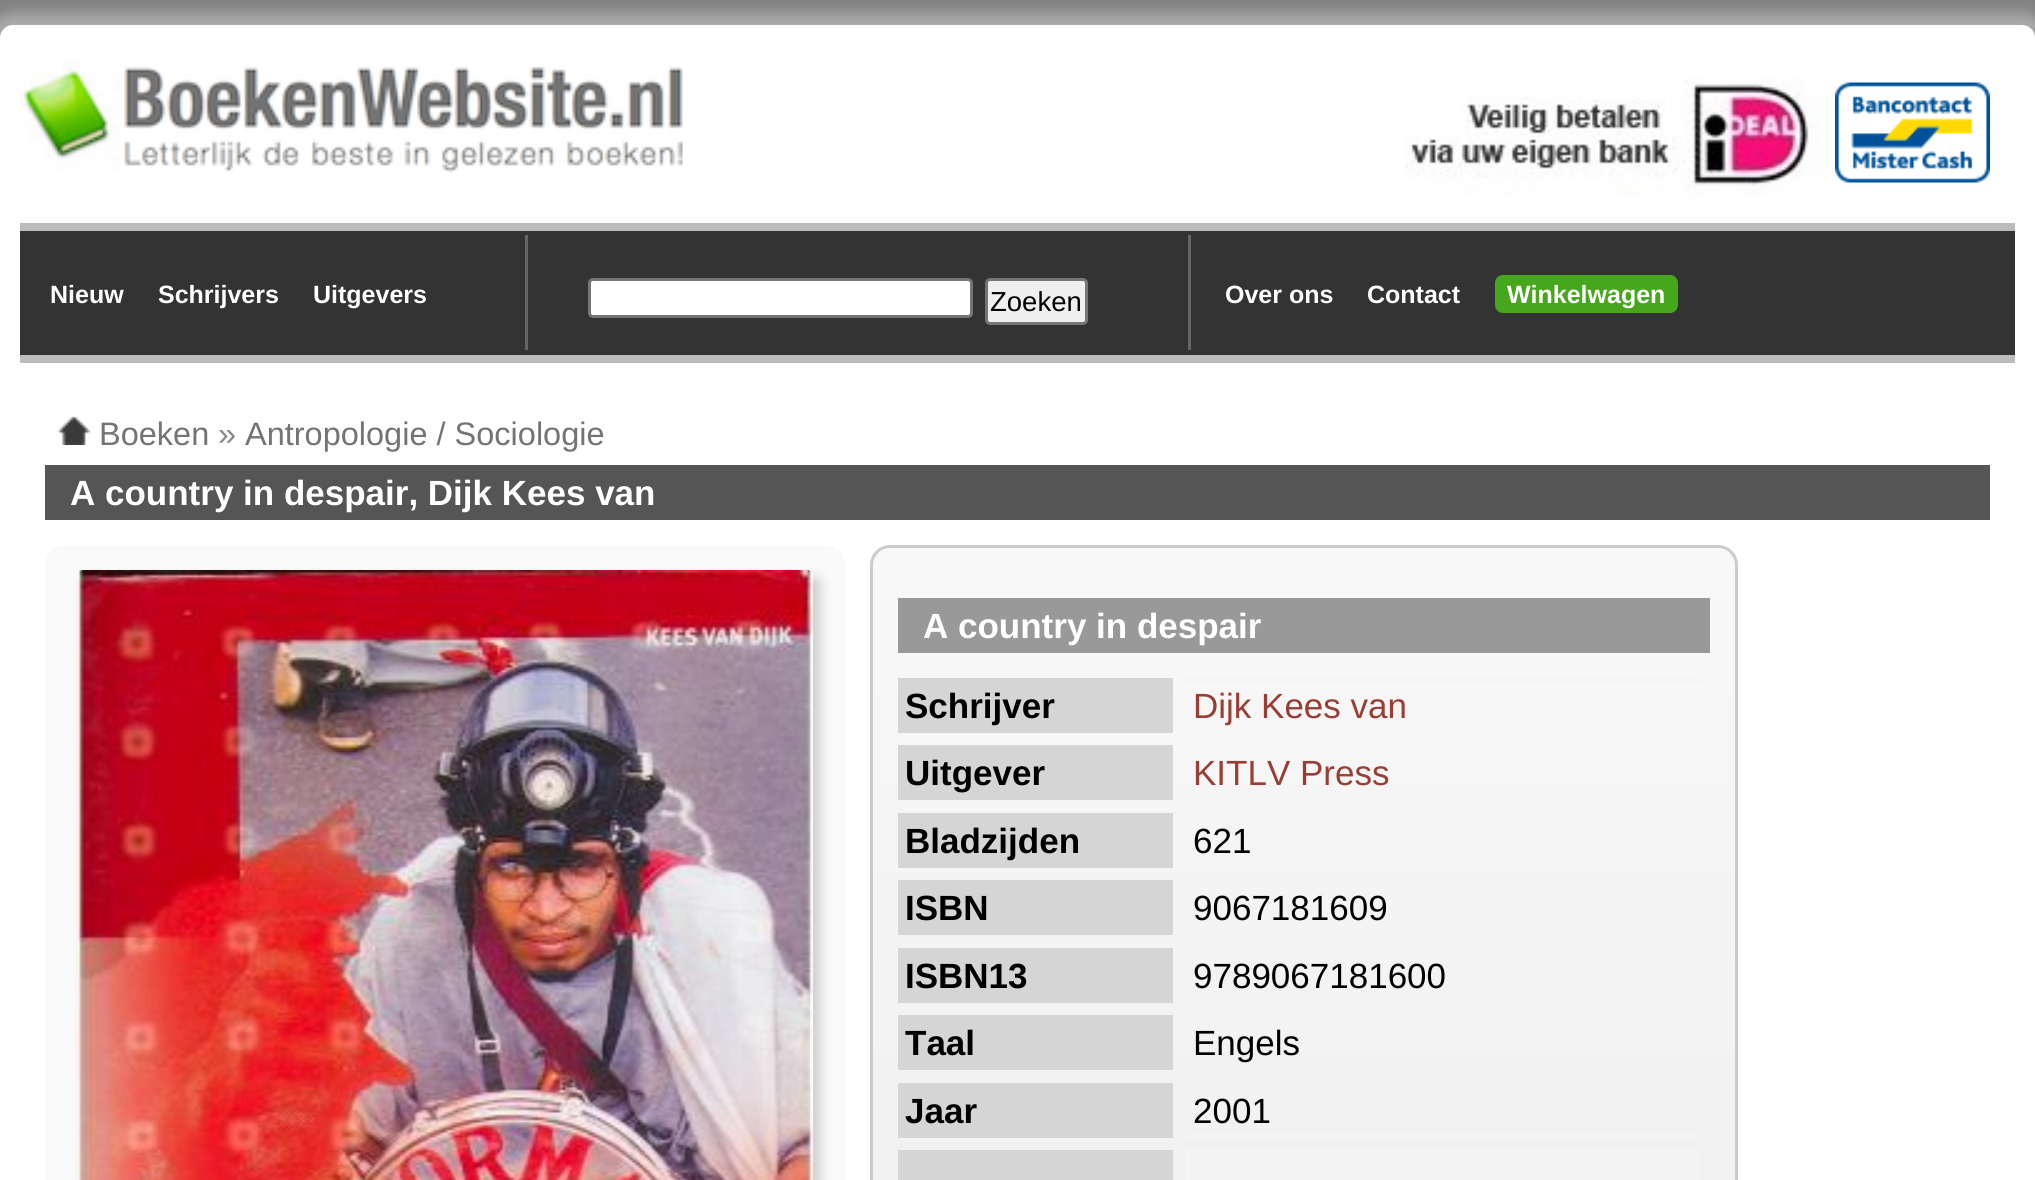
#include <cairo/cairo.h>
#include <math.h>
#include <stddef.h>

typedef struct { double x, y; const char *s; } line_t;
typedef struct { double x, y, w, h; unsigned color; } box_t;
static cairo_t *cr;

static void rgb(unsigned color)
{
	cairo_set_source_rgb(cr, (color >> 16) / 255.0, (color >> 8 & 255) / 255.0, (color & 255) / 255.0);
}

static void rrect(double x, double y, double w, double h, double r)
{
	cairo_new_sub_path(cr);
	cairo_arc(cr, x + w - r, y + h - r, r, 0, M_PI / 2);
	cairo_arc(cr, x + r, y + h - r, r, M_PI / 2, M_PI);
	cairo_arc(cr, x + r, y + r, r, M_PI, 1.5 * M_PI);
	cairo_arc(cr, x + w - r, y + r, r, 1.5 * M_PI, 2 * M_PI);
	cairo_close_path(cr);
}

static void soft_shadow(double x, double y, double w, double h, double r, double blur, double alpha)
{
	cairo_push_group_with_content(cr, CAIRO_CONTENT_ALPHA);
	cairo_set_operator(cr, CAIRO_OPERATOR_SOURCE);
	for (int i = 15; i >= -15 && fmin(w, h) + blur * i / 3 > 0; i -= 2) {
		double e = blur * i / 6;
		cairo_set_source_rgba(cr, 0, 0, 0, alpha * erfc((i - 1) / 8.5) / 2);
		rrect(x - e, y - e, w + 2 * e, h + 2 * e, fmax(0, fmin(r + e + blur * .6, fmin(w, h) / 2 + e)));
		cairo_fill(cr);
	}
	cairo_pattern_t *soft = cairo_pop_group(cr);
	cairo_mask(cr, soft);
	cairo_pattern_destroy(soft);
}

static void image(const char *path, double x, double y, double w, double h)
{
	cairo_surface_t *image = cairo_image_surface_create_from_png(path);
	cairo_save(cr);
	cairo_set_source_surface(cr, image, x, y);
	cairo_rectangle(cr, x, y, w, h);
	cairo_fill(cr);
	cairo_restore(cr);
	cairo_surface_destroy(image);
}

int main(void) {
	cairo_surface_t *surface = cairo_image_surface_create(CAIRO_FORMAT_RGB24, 2035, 1180);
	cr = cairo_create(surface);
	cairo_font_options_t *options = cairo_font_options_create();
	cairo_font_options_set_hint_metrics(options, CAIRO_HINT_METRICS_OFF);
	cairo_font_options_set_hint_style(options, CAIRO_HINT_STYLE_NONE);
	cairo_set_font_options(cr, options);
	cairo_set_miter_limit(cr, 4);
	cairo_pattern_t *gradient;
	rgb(0x828282);
	cairo_paint(cr);
	rgb(0xaaaaaa);
	soft_shadow(-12, 13, 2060, 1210, 25, 6, 1);
	rgb(0xffffff);
	rrect(0, 25, 2035, 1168, 13);
	cairo_fill(cr);
	image("img/1.png", 20, 58, 663, 115);
	image("img/2.png", 1405, 78, 419, 119);
	image("img/3.png", 1835, 82, 155, 101);
	{
		static const box_t items[] = {
			{20, 231, 1995, 124, 0x333333},
			{20, 223, 1995, 8, 0xbbbbbb},
			{20, 355, 1995, 8, 0xbbbbbb},
			{525, 235, 3, 115, 0x666666},
			{1188, 235, 3, 115, 0x666666},
		};
		for (size_t i = 0; i < sizeof items / sizeof *items; i++) {
			rgb(items[i].color);
			cairo_rectangle(cr, items[i].x, items[i].y, items[i].w, items[i].h);
			cairo_fill(cr);
		}
	}
	rgb(0xffffff);
	rrect(589.5, 279.5, 382, 37, 3.5);
	cairo_fill_preserve(cr);
	rgb(0x767676);
	cairo_set_line_width(cr, 3);
	cairo_stroke(cr);
	rgb(0xefefef);
	rrect(986.5, 279.5, 100, 44, 3.5);
	cairo_fill_preserve(cr);
	rgb(0x767676);
	cairo_stroke(cr);
	rgb(0x47a71c);
	rrect(1495, 275, 183, 38, 8);
	cairo_fill(cr);
	image("img/4.png", 57, 415, 33, 30);
	rgb(0x555555);
	cairo_rectangle(cr, 45, 465, 1945, 55);
	cairo_fill(cr);
	rgb(0xfafafa);
	rrect(45, 545, 800, 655, 20);
	cairo_fill(cr);
	rgb(0xcccccc);
	soft_shadow(85, 578, 735, 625, 5, 6, 1);
	image("img/5.png", 78, 570, 735, 610);
	cairo_save(cr);
	rrect(870, 545, 868, 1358, 20);
	cairo_clip(cr);
	gradient = cairo_pattern_create_linear(873, 548, 873, 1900);
	cairo_pattern_add_color_stop_rgba(gradient, 0, 0.973, 0.973, 0.973, 1);
	cairo_pattern_add_color_stop_rgba(gradient, 1, 0.914, 0.914, 0.914, 1);
	cairo_set_source(cr, gradient);
	cairo_pattern_destroy(gradient);
	cairo_rectangle(cr, 870, 548, 868, 632);
	cairo_fill(cr);
	cairo_restore(cr);
	rrect(871.5, 546.5, 865, 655, 18.5);
	rgb(0xcccccc);
	cairo_stroke(cr);
	{
		static const box_t items[] = {
			{898, 598, 812, 55, 0x999999},
			{898, 678, 275, 55, 0xd5d5d5},
			{1185, 678, 515, 5, 0xf4f4f4},
			{898, 745, 275, 55, 0xd5d5d5},
			{898, 813, 275, 55, 0xd5d5d5},
			{898, 880, 275, 55, 0xd5d5d5},
			{898, 948, 275, 55, 0xd5d5d5},
			{898, 1015, 275, 55, 0xd5d5d5},
			{898, 1083, 275, 55, 0xd5d5d5},
			{1185, 1134, 515, 4, 0xf4f4f4},
			{898, 1150, 275, 30, 0xd5d5d5},
			{1185, 1150, 515, 30, 0xf4f4f4},
		};
		for (size_t i = 0; i < sizeof items / sizeof *items; i++) {
			rgb(items[i].color);
			cairo_rectangle(cr, items[i].x, items[i].y, items[i].w, items[i].h);
			cairo_fill(cr);
		}
	}
	cairo_select_font_face(cr, "Liberation Sans", CAIRO_FONT_SLANT_NORMAL, CAIRO_FONT_WEIGHT_BOLD);
	cairo_set_font_size(cr, 25);
	rgb(0xffffff);
	{
		static const line_t items[] = {
			{50, 303, "Nieuw"},
			{158, 303, "Schrijvers"},
			{313, 303, "Uitgevers"},
		};
		for (size_t i = 0; i < sizeof items / sizeof *items; i++) {
			cairo_move_to(cr, items[i].x, items[i].y);
			cairo_show_text(cr, items[i].s);
		}
	}
	cairo_select_font_face(cr, "Liberation Sans", CAIRO_FONT_SLANT_NORMAL, CAIRO_FONT_WEIGHT_NORMAL);
	cairo_set_font_size(cr, 27.5);
	rgb(0x000000);
	cairo_move_to(cr, 990, 311);
	cairo_show_text(cr, "Zoeken");
	cairo_select_font_face(cr, "Liberation Sans", CAIRO_FONT_SLANT_NORMAL, CAIRO_FONT_WEIGHT_BOLD);
	cairo_set_font_size(cr, 25);
	rgb(0xffffff);
	{
		static const line_t items[] = {
			{1225, 303, "Over ons"},
			{1367, 303, "Contact"},
			{1507, 303, "Winkelwagen"},
		};
		for (size_t i = 0; i < sizeof items / sizeof *items; i++) {
			cairo_move_to(cr, items[i].x, items[i].y);
			cairo_show_text(cr, items[i].s);
		}
	}
	cairo_select_font_face(cr, "Liberation Sans", CAIRO_FONT_SLANT_NORMAL, CAIRO_FONT_WEIGHT_NORMAL);
	cairo_set_font_size(cr, 32.5);
	rgb(0x747474);
	cairo_move_to(cr, 99, 445);
	cairo_show_text(cr, "Boeken");
	rgb(0x888888);
	cairo_move_to(cr, 218, 445);
	cairo_show_text(cr, "»");
	rgb(0x747474);
	cairo_move_to(cr, 245, 445);
	cairo_show_text(cr, "Antropologie / Sociologie");
	cairo_select_font_face(cr, "Liberation Sans", CAIRO_FONT_SLANT_NORMAL, CAIRO_FONT_WEIGHT_BOLD);
	cairo_set_font_size(cr, 35);
	rgb(0xffffff);
	cairo_move_to(cr, 70, 505);
	cairo_show_text(cr, "A country in despair, Dijk Kees van");
	cairo_move_to(cr, 923, 638);
	cairo_show_text(cr, "A country in despair");
	rgb(0x000000);
	cairo_move_to(cr, 905, 718);
	cairo_show_text(cr, "Schrijver");
	cairo_select_font_face(cr, "Liberation Sans", CAIRO_FONT_SLANT_NORMAL, CAIRO_FONT_WEIGHT_NORMAL);
	rgb(0x983e35);
	cairo_move_to(cr, 1193, 718);
	cairo_show_text(cr, "Dijk Kees van");
	cairo_select_font_face(cr, "Liberation Sans", CAIRO_FONT_SLANT_NORMAL, CAIRO_FONT_WEIGHT_BOLD);
	rgb(0x000000);
	cairo_move_to(cr, 905, 785);
	cairo_show_text(cr, "Uitgever");
	cairo_select_font_face(cr, "Liberation Sans", CAIRO_FONT_SLANT_NORMAL, CAIRO_FONT_WEIGHT_NORMAL);
	rgb(0x983e35);
	cairo_move_to(cr, 1193, 785);
	cairo_show_text(cr, "KITLV Press");
	cairo_select_font_face(cr, "Liberation Sans", CAIRO_FONT_SLANT_NORMAL, CAIRO_FONT_WEIGHT_BOLD);
	rgb(0x000000);
	cairo_move_to(cr, 905, 853);
	cairo_show_text(cr, "Bladzijden");
	cairo_select_font_face(cr, "Liberation Sans", CAIRO_FONT_SLANT_NORMAL, CAIRO_FONT_WEIGHT_NORMAL);
	cairo_move_to(cr, 1193, 853);
	cairo_show_text(cr, "621");
	cairo_select_font_face(cr, "Liberation Sans", CAIRO_FONT_SLANT_NORMAL, CAIRO_FONT_WEIGHT_BOLD);
	cairo_move_to(cr, 905, 920);
	cairo_show_text(cr, "ISBN");
	cairo_select_font_face(cr, "Liberation Sans", CAIRO_FONT_SLANT_NORMAL, CAIRO_FONT_WEIGHT_NORMAL);
	cairo_move_to(cr, 1193, 920);
	cairo_show_text(cr, "9067181609");
	cairo_select_font_face(cr, "Liberation Sans", CAIRO_FONT_SLANT_NORMAL, CAIRO_FONT_WEIGHT_BOLD);
	cairo_move_to(cr, 905, 988);
	cairo_show_text(cr, "ISBN13");
	cairo_select_font_face(cr, "Liberation Sans", CAIRO_FONT_SLANT_NORMAL, CAIRO_FONT_WEIGHT_NORMAL);
	cairo_move_to(cr, 1193, 988);
	cairo_show_text(cr, "9789067181600");
	cairo_select_font_face(cr, "Liberation Sans", CAIRO_FONT_SLANT_NORMAL, CAIRO_FONT_WEIGHT_BOLD);
	cairo_move_to(cr, 905, 1055);
	cairo_show_text(cr, "Taal");
	cairo_select_font_face(cr, "Liberation Sans", CAIRO_FONT_SLANT_NORMAL, CAIRO_FONT_WEIGHT_NORMAL);
	cairo_move_to(cr, 1193, 1055);
	cairo_show_text(cr, "Engels");
	cairo_select_font_face(cr, "Liberation Sans", CAIRO_FONT_SLANT_NORMAL, CAIRO_FONT_WEIGHT_BOLD);
	cairo_move_to(cr, 905, 1123);
	cairo_show_text(cr, "Jaar");
	cairo_select_font_face(cr, "Liberation Sans", CAIRO_FONT_SLANT_NORMAL, CAIRO_FONT_WEIGHT_NORMAL);
	cairo_move_to(cr, 1193, 1123);
	cairo_show_text(cr, "2001");
	cairo_surface_write_to_png(surface, "page.png");
	cairo_font_options_destroy(options);
	cairo_destroy(cr);
	cairo_surface_destroy(surface);
	return 0;
}
